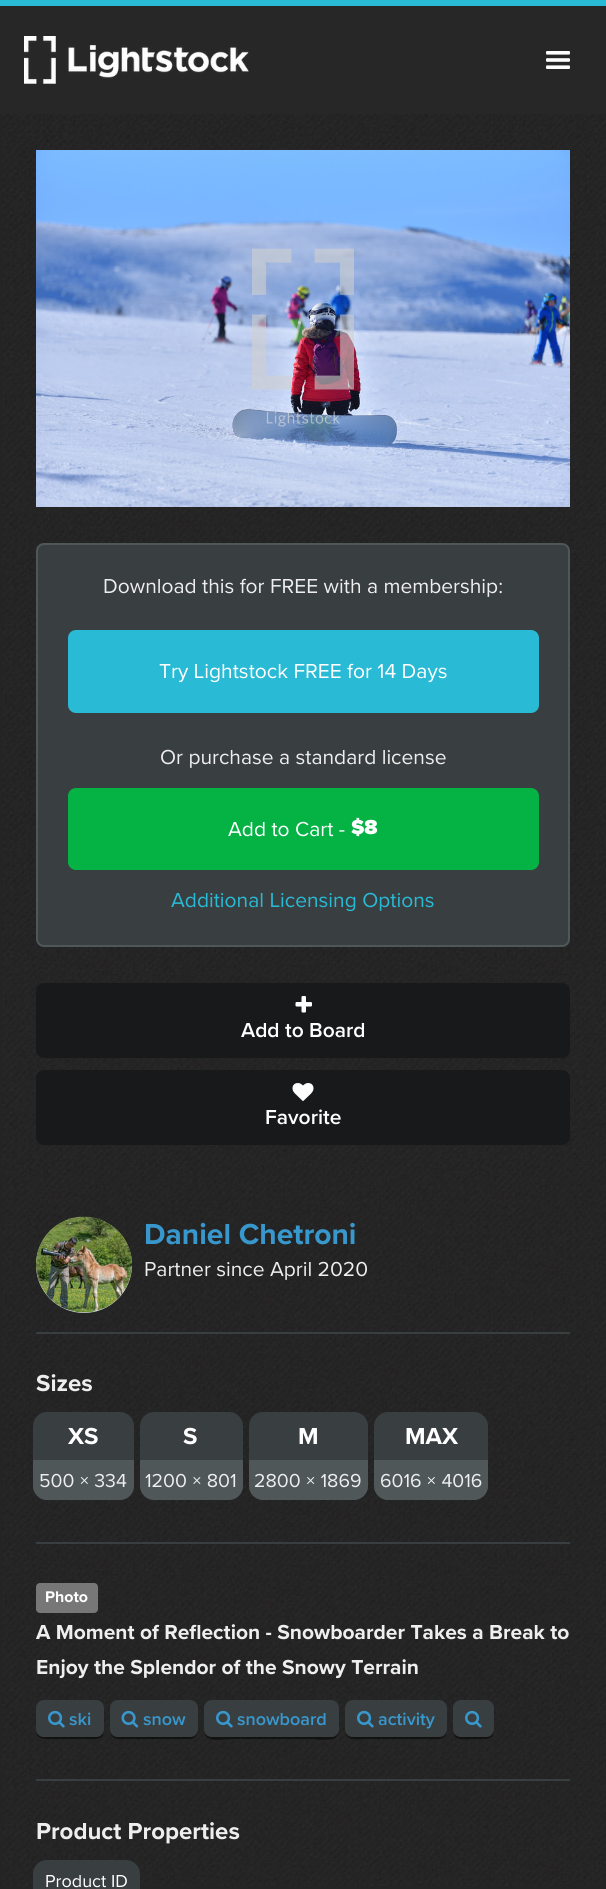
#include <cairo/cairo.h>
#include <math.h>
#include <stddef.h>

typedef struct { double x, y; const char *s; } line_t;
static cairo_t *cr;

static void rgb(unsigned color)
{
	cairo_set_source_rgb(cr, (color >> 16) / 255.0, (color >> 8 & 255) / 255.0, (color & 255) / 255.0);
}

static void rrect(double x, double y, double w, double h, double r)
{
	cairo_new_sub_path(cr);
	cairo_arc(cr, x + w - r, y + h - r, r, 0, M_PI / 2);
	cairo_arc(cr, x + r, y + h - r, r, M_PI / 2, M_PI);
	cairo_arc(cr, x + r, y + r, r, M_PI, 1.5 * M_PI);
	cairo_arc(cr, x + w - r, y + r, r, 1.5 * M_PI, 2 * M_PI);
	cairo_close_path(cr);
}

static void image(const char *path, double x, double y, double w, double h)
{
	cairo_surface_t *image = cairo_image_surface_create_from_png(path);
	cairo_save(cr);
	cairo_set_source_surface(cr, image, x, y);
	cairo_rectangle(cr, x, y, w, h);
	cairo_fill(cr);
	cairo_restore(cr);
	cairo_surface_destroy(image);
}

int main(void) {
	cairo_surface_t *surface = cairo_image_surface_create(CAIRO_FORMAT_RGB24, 606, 1889);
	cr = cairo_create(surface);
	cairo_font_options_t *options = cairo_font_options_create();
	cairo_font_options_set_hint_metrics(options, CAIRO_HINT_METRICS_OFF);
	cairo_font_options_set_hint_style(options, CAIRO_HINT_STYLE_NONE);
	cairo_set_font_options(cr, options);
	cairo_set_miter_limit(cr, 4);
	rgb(0x242424);
	cairo_paint(cr);
	image("img/1.png", 2, 114, 604, 1772);
	rgb(0x272727);
	cairo_rectangle(cr, 0, 6, 606, 108);
	cairo_fill(cr);
	rgb(0x29bad5);
	cairo_rectangle(cr, 0, 0, 606, 6);
	cairo_fill(cr);
	image("img/2.png", 24, 36, 225, 48);
	image("img/3.png", 546, 51, 24, 18);
	image("img/4.png", 36, 150, 534, 357);
	rgb(0x393e40);
	rrect(37, 544, 532, 402, 7);
	cairo_fill_preserve(cr);
	rgb(0x505759);
	cairo_stroke(cr);
	rgb(0x29bad5);
	rrect(68, 630, 471, 83, 8);
	cairo_fill(cr);
	rgb(0x05b345);
	rrect(68, 788, 471, 82, 8);
	cairo_fill(cr);
	rgb(0x17191a);
	rrect(36, 983, 534, 75, 8);
	cairo_fill(cr);
	image("img/5.png", 295, 996, 17, 17);
	rrect(36, 1070, 534, 75, 8);
	cairo_fill(cr);
	image("img/6.png", 292, 1083, 22, 18);
	rgb(0x393e40);
	cairo_rectangle(cr, 36, 1332, 534, 2);
	cairo_fill(cr);
	rgb(0xcad4d9);
	cairo_arc(cr, 84, 1265, 48, 0, 2 * M_PI);
	cairo_fill(cr);
	image("img/7.png", 36, 1216, 96, 97);
	rgb(0x393e40);
	cairo_rectangle(cr, 36, 1542, 534, 2);
	cairo_fill(cr);
	rrect(33, 1412, 101, 88, 14);
	cairo_fill(cr);
	rgb(0x505759);
	cairo_new_path(cr);
	cairo_move_to(cr, 33, 1460);
	cairo_line_to(cr, 134, 1460);
	cairo_line_to(cr, 134, 1486);
	cairo_curve_to(cr, 134, 1493.5, 127.5, 1500, 120, 1500);
	cairo_line_to(cr, 47, 1500);
	cairo_curve_to(cr, 39.5, 1500, 33, 1493.5, 33, 1486);
	cairo_close_path(cr);
	cairo_fill(cr);
	rgb(0x393e40);
	rrect(140, 1412, 103, 88, 14);
	cairo_fill(cr);
	rgb(0x505759);
	cairo_new_path(cr);
	cairo_move_to(cr, 140, 1460);
	cairo_line_to(cr, 243, 1460);
	cairo_line_to(cr, 243, 1486);
	cairo_curve_to(cr, 243, 1493.5, 236.5, 1500, 229, 1500);
	cairo_line_to(cr, 154, 1500);
	cairo_curve_to(cr, 146.5, 1500, 140, 1493.5, 140, 1486);
	cairo_close_path(cr);
	cairo_fill(cr);
	rgb(0x393e40);
	rrect(249, 1412, 119, 88, 14);
	cairo_fill(cr);
	rgb(0x505759);
	cairo_new_path(cr);
	cairo_move_to(cr, 249, 1460);
	cairo_line_to(cr, 368, 1460);
	cairo_line_to(cr, 368, 1486);
	cairo_curve_to(cr, 368, 1493.5, 361.5, 1500, 354, 1500);
	cairo_line_to(cr, 263, 1500);
	cairo_curve_to(cr, 255.5, 1500, 249, 1493.5, 249, 1486);
	cairo_close_path(cr);
	cairo_fill(cr);
	rgb(0x393e40);
	rrect(374, 1412, 114, 88, 14);
	cairo_fill(cr);
	rgb(0x505759);
	cairo_new_path(cr);
	cairo_move_to(cr, 374, 1460);
	cairo_line_to(cr, 488, 1460);
	cairo_line_to(cr, 488, 1486);
	cairo_curve_to(cr, 488, 1493.5, 481.5, 1500, 474, 1500);
	cairo_line_to(cr, 388, 1500);
	cairo_curve_to(cr, 380.5, 1500, 374, 1493.5, 374, 1486);
	cairo_close_path(cr);
	cairo_fill(cr);
	rgb(0x393e40);
	cairo_rectangle(cr, 36, 1779, 534, 2);
	cairo_fill(cr);
	rgb(0x777777);
	rrect(36, 1583, 62, 30, 4);
	cairo_fill(cr);
	cairo_set_source_rgba(cr, 0, 0, 0, 0.5);
	cairo_new_path(cr);
	cairo_move_to(cr, 36, 1730);
	cairo_curve_to(cr, 36, 1740, 44, 1739, 53, 1739);
	cairo_line_to(cr, 87, 1739);
	cairo_curve_to(cr, 103, 1739, 104, 1739, 104, 1724);
	cairo_curve_to(cr, 104, 1719, 105, 1710, 103, 1706);
	cairo_line_to(cr, 104, 1730);
	cairo_curve_to(cr, 104, 1734, 100, 1737, 96, 1737);
	cairo_line_to(cr, 44, 1737);
	cairo_curve_to(cr, 39, 1737, 36, 1734, 36, 1730);
	cairo_close_path(cr);
	cairo_fill(cr);
	rgb(0x393e40);
	rrect(36, 1700, 68, 37, 8);
	cairo_fill(cr);
	image("img/8.png", 48, 1710, 17, 18);
	cairo_set_source_rgba(cr, 0, 0, 0, 0.5);
	cairo_new_path(cr);
	cairo_move_to(cr, 110, 1733);
	cairo_curve_to(cr, 111, 1736, 114, 1739, 118, 1739);
	cairo_line_to(cr, 190, 1739);
	cairo_curve_to(cr, 194, 1739, 198, 1735, 198, 1731);
	cairo_line_to(cr, 198, 1730);
	cairo_curve_to(cr, 198, 1734, 195, 1737, 190, 1737);
	cairo_line_to(cr, 117, 1737);
	cairo_curve_to(cr, 114, 1737, 111, 1735, 110, 1733);
	cairo_close_path(cr);
	cairo_fill(cr);
	rgb(0x393e40);
	rrect(110, 1700, 88, 37, 8);
	cairo_fill(cr);
	image("img/9.png", 121, 1710, 18, 18);
	cairo_set_source_rgba(cr, 0, 0, 0, 0.5);
	cairo_new_path(cr);
	cairo_move_to(cr, 204, 1730);
	cairo_curve_to(cr, 204, 1744, 223, 1739, 232, 1739);
	cairo_line_to(cr, 311, 1739);
	cairo_curve_to(cr, 320, 1739, 339, 1744, 339, 1730);
	cairo_curve_to(cr, 339, 1734, 336, 1737, 332, 1737);
	cairo_line_to(cr, 212, 1737);
	cairo_curve_to(cr, 207, 1737, 204, 1734, 204, 1730);
	cairo_close_path(cr);
	cairo_fill(cr);
	rgb(0x393e40);
	rrect(204, 1700, 135, 37, 8);
	cairo_fill(cr);
	image("img/8.png", 216, 1710, 17, 18);
	cairo_set_source_rgba(cr, 0, 0, 0, 0.5);
	cairo_new_path(cr);
	cairo_move_to(cr, 345, 1730);
	cairo_curve_to(cr, 345, 1742, 358, 1739, 367, 1739);
	cairo_line_to(cr, 425, 1739);
	cairo_curve_to(cr, 434, 1739, 447, 1742, 447, 1730);
	cairo_curve_to(cr, 447, 1734, 444, 1737, 440, 1737);
	cairo_line_to(cr, 352, 1737);
	cairo_curve_to(cr, 348, 1737, 345, 1734, 345, 1730);
	cairo_close_path(cr);
	cairo_fill(cr);
	rgb(0x393e40);
	rrect(345, 1700, 102, 37, 8);
	cairo_fill(cr);
	image("img/8.png", 357, 1710, 17, 18);
	cairo_set_source_rgba(cr, 0, 0, 0, 0.5);
	cairo_new_path(cr);
	cairo_move_to(cr, 453, 1730);
	cairo_curve_to(cr, 453, 1742, 465, 1739, 474, 1739);
	cairo_curve_to(cr, 494, 1739, 494, 1740, 494, 1720);
	cairo_curve_to(cr, 494, 1716, 495, 1710, 493, 1706);
	cairo_line_to(cr, 494, 1722);
	cairo_curve_to(cr, 494, 1737, 492, 1737, 478, 1737);
	cairo_line_to(cr, 465, 1737);
	cairo_curve_to(cr, 459, 1737, 453, 1737, 453, 1730);
	cairo_close_path(cr);
	cairo_fill(cr);
	rgb(0x393e40);
	rrect(453, 1700, 41, 37, 8);
	cairo_fill(cr);
	image("img/8.png", 465, 1710, 17, 18);
	rrect(33, 1860, 107, 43, 14);
	cairo_fill(cr);
	cairo_select_font_face(cr, "Proxima Nova", CAIRO_FONT_SLANT_NORMAL, CAIRO_FONT_WEIGHT_NORMAL);
	cairo_set_font_size(cr, 21);
	rgb(0xeeeeee);
	cairo_move_to(cr, 103, 593);
	cairo_show_text(cr, "Download this for FREE with a membership:");
	rgb(0xffffff);
	cairo_move_to(cr, 159, 678);
	cairo_show_text(cr, "Try Lightstock FREE for 14 Days");
	rgb(0xeeeeee);
	cairo_move_to(cr, 160, 764);
	cairo_show_text(cr, "Or purchase a standard license");
	rgb(0xffffff);
	cairo_move_to(cr, 228, 836);
	cairo_show_text(cr, "Add to Cart -");
	cairo_select_font_face(cr, "Proxima Nova Black", CAIRO_FONT_SLANT_NORMAL, CAIRO_FONT_WEIGHT_NORMAL);
	cairo_move_to(cr, 351, 834);
	cairo_show_text(cr, "$8");
	cairo_select_font_face(cr, "Proxima Nova", CAIRO_FONT_SLANT_NORMAL, CAIRO_FONT_WEIGHT_NORMAL);
	rgb(0x29bad5);
	cairo_move_to(cr, 171, 907);
	cairo_show_text(cr, "Additional Licensing Options");
	cairo_select_font_face(cr, "Proxima Nova SemiBold", CAIRO_FONT_SLANT_NORMAL, CAIRO_FONT_WEIGHT_NORMAL);
	rgb(0xffffff);
	cairo_move_to(cr, 241, 1037);
	cairo_show_text(cr, "Add to Board");
	cairo_move_to(cr, 265, 1124);
	cairo_show_text(cr, "Favorite");
	cairo_select_font_face(cr, "Proxima Nova", CAIRO_FONT_SLANT_NORMAL, CAIRO_FONT_WEIGHT_BOLD);
	cairo_set_font_size(cr, 30);
	rgb(0x3898cd);
	cairo_move_to(cr, 144, 1244);
	cairo_show_text(cr, "Daniel Chetroni");
	cairo_select_font_face(cr, "Proxima Nova", CAIRO_FONT_SLANT_NORMAL, CAIRO_FONT_WEIGHT_NORMAL);
	cairo_set_font_size(cr, 21);
	rgb(0xeeeeee);
	cairo_move_to(cr, 144, 1276);
	cairo_show_text(cr, "Partner since April 2020");
	cairo_select_font_face(cr, "Proxima Nova", CAIRO_FONT_SLANT_NORMAL, CAIRO_FONT_WEIGHT_BOLD);
	cairo_set_font_size(cr, 24);
	cairo_move_to(cr, 36, 1391);
	cairo_show_text(cr, "Sizes");
	rgb(0xffffff);
	cairo_move_to(cr, 68, 1444);
	cairo_show_text(cr, "XS");
	cairo_select_font_face(cr, "Proxima Nova", CAIRO_FONT_SLANT_NORMAL, CAIRO_FONT_WEIGHT_NORMAL);
	cairo_set_font_size(cr, 19.5);
	rgb(0xeeeeee);
	cairo_move_to(cr, 39, 1487);
	cairo_show_text(cr, "500 × 334");
	cairo_select_font_face(cr, "Proxima Nova", CAIRO_FONT_SLANT_NORMAL, CAIRO_FONT_WEIGHT_BOLD);
	cairo_set_font_size(cr, 24);
	rgb(0xffffff);
	cairo_move_to(cr, 183, 1444);
	cairo_show_text(cr, "S");
	cairo_select_font_face(cr, "Proxima Nova", CAIRO_FONT_SLANT_NORMAL, CAIRO_FONT_WEIGHT_NORMAL);
	cairo_set_font_size(cr, 19.5);
	rgb(0xeeeeee);
	cairo_move_to(cr, 145, 1487);
	cairo_show_text(cr, "1200 × 801");
	cairo_select_font_face(cr, "Proxima Nova", CAIRO_FONT_SLANT_NORMAL, CAIRO_FONT_WEIGHT_BOLD);
	cairo_set_font_size(cr, 24);
	rgb(0xffffff);
	cairo_move_to(cr, 298, 1444);
	cairo_show_text(cr, "M");
	cairo_select_font_face(cr, "Proxima Nova", CAIRO_FONT_SLANT_NORMAL, CAIRO_FONT_WEIGHT_NORMAL);
	cairo_set_font_size(cr, 19.5);
	rgb(0xeeeeee);
	cairo_move_to(cr, 254, 1487);
	cairo_show_text(cr, "2800 × 1869");
	cairo_select_font_face(cr, "Proxima Nova", CAIRO_FONT_SLANT_NORMAL, CAIRO_FONT_WEIGHT_BOLD);
	cairo_set_font_size(cr, 24);
	rgb(0xffffff);
	cairo_move_to(cr, 405, 1444);
	cairo_show_text(cr, "MAX");
	cairo_select_font_face(cr, "Proxima Nova", CAIRO_FONT_SLANT_NORMAL, CAIRO_FONT_WEIGHT_NORMAL);
	cairo_set_font_size(cr, 19.5);
	rgb(0xeeeeee);
	cairo_move_to(cr, 380, 1487);
	cairo_show_text(cr, "6016 × 4016");
	cairo_select_font_face(cr, "Proxima Nova", CAIRO_FONT_SLANT_NORMAL, CAIRO_FONT_WEIGHT_BOLD);
	cairo_set_font_size(cr, 16);
	rgb(0xffffff);
	cairo_move_to(cr, 45, 1602);
	cairo_show_text(cr, "Photo");
	cairo_set_font_size(cr, 21);
	rgb(0xeeeeee);
	cairo_move_to(cr, 36, 1639);
	cairo_show_text(cr, "A Moment of Reflection - Snowboarder Takes a Break to");
	cairo_move_to(cr, 36, 1674);
	cairo_show_text(cr, "Enjoy the Splendor of the Snowy Terrain");
	cairo_select_font_face(cr, "Proxima Nova SemiBold", CAIRO_FONT_SLANT_NORMAL, CAIRO_FONT_WEIGHT_NORMAL);
	cairo_set_font_size(cr, 18);
	rgb(0x3898cd);
	{
		static const line_t items[] = {
			{69, 1725, "ski"},
			{143, 1725, "snow"},
			{237, 1725, "snowboard"},
			{378, 1725, "activity"},
		};
		for (size_t i = 0; i < sizeof items / sizeof *items; i++) {
			cairo_move_to(cr, items[i].x, items[i].y);
			cairo_show_text(cr, items[i].s);
		}
	}
	cairo_select_font_face(cr, "Proxima Nova", CAIRO_FONT_SLANT_NORMAL, CAIRO_FONT_WEIGHT_BOLD);
	cairo_set_font_size(cr, 24);
	rgb(0xeeeeee);
	cairo_move_to(cr, 36, 1839);
	cairo_show_text(cr, "Product Properties");
	cairo_select_font_face(cr, "Proxima Nova", CAIRO_FONT_SLANT_NORMAL, CAIRO_FONT_WEIGHT_NORMAL);
	cairo_set_font_size(cr, 18);
	rgb(0xffffff);
	cairo_move_to(cr, 45, 1887);
	cairo_show_text(cr, "Product ID");
	cairo_surface_write_to_png(surface, "page.png");
	cairo_font_options_destroy(options);
	cairo_destroy(cr);
	cairo_surface_destroy(surface);
	return 0;
}
